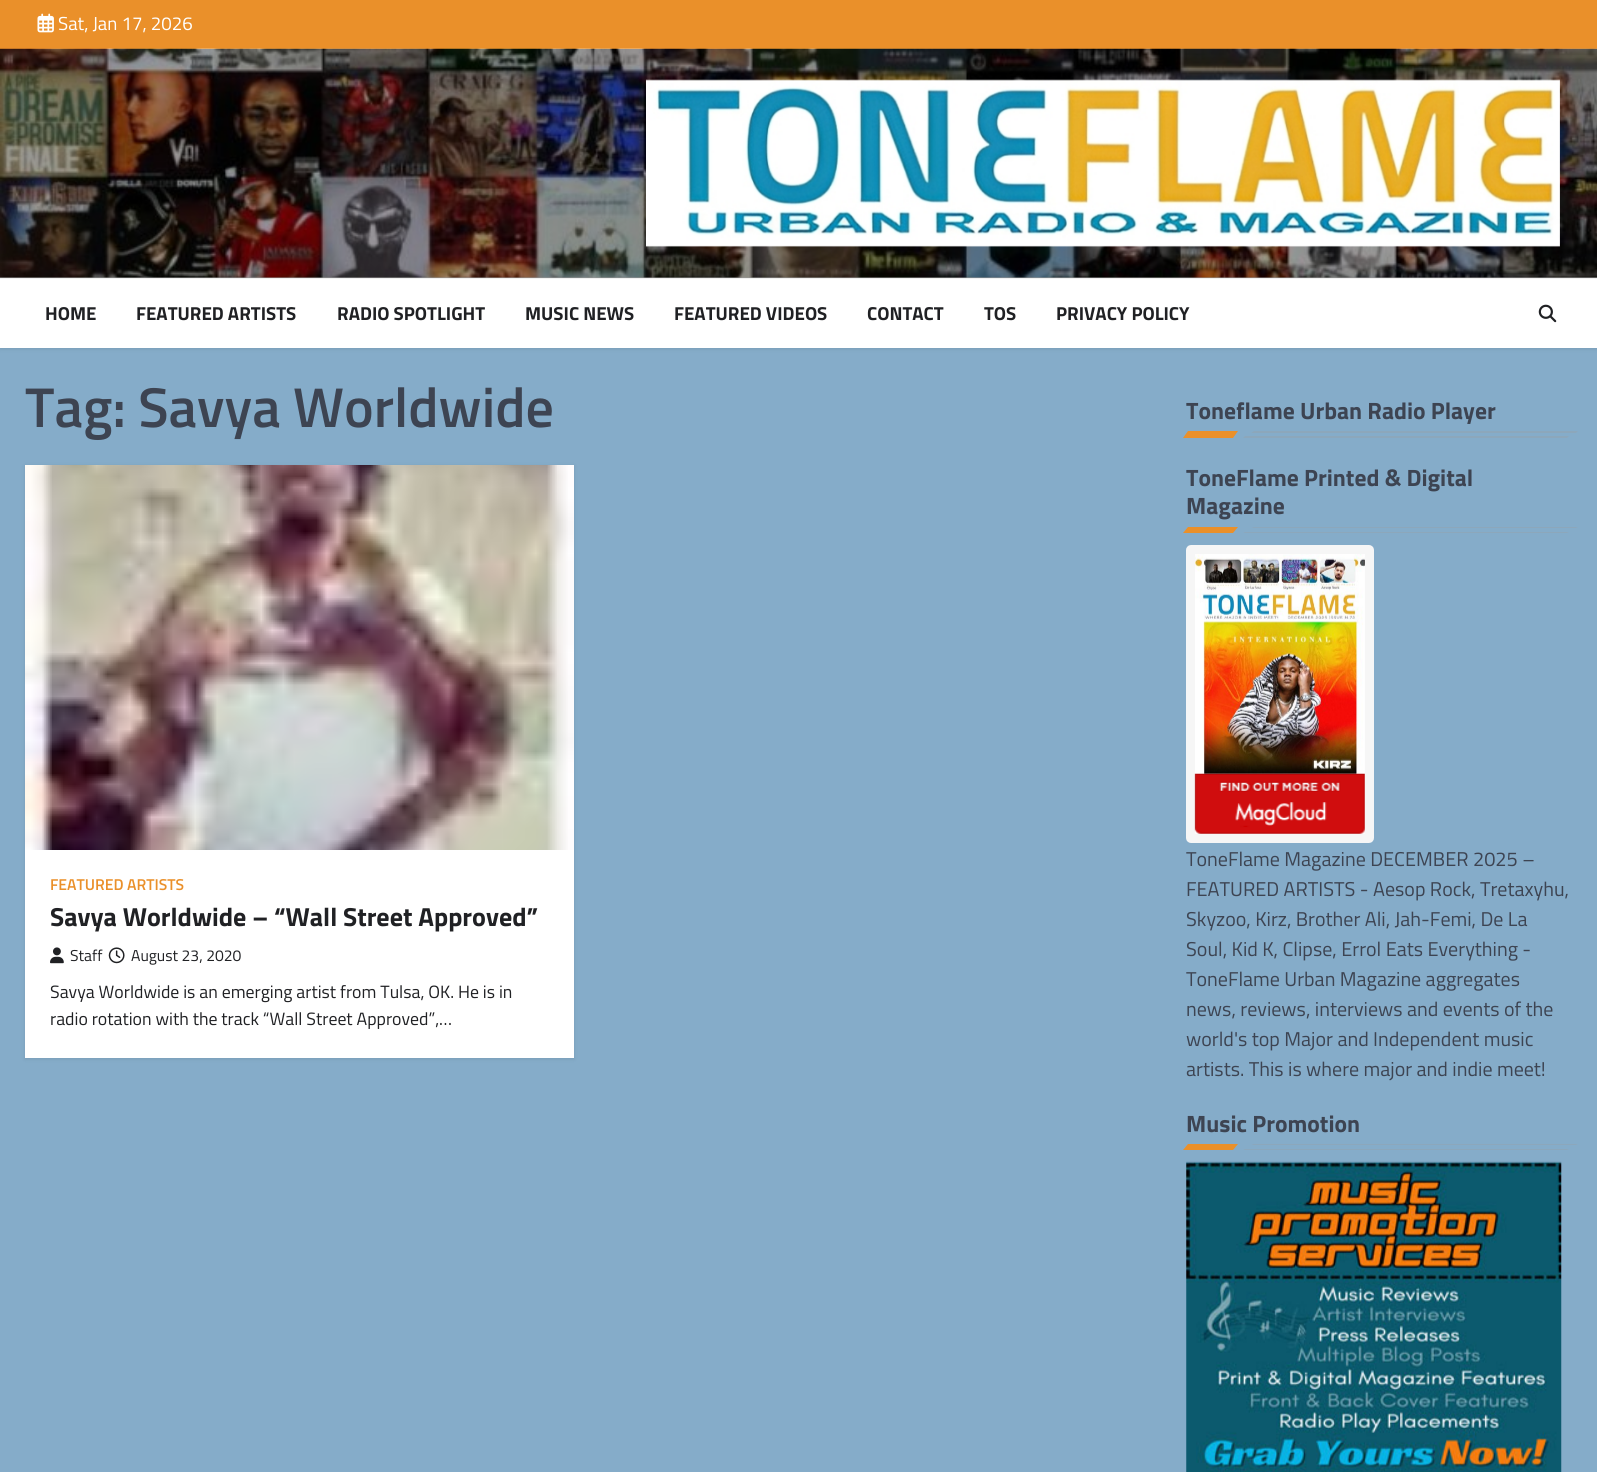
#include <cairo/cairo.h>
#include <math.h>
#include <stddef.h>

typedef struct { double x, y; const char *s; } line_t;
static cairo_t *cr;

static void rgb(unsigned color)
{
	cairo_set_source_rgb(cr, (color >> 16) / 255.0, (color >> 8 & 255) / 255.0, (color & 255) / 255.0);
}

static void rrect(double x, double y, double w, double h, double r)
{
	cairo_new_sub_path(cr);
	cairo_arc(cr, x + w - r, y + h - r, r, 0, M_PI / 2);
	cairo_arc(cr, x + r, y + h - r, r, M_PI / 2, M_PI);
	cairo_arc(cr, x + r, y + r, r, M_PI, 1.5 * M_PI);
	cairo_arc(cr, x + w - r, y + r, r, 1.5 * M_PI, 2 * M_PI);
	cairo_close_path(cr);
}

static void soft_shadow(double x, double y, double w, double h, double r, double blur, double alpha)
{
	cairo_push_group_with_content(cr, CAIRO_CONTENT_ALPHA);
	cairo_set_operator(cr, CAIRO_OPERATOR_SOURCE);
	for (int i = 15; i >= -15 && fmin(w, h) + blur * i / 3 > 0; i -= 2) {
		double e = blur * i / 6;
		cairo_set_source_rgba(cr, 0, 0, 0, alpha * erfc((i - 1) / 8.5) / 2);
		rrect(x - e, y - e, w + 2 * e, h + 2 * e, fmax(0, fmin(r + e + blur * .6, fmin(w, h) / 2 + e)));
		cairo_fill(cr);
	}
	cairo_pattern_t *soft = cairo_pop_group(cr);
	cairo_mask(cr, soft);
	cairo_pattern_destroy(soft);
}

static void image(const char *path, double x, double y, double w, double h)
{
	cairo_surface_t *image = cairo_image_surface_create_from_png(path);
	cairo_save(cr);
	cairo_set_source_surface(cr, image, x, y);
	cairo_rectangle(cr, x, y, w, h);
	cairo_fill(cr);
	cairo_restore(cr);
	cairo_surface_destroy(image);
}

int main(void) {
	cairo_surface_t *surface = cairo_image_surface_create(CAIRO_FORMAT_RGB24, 1597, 1472);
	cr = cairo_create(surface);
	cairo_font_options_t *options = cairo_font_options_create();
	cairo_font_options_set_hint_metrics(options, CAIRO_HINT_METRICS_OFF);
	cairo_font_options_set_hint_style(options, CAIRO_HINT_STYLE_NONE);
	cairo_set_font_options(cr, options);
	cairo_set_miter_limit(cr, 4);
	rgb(0x85acc9);
	cairo_paint(cr);
	rgb(0x000000);
	soft_shadow(0, 1, 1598, 348, 0, 2, 0.1);
	rgb(0xea902a);
	cairo_rectangle(cr, 0, 0, 1597, 49);
	cairo_fill(cr);
	image("img/1.png", 37, 13, 17, 20);
	rgb(0x999999);
	cairo_rectangle(cr, 0, 277, 1597, 1);
	cairo_fill(cr);
	image("img/2.png", 0, 48, 1597, 230);
	image("img/3.png", 646, 79, 914, 168);
	rgb(0xffffff);
	cairo_rectangle(cr, 0, 279, 1597, 69);
	cairo_fill(cr);
	rgb(0xf1f1f1);
	cairo_rectangle(cr, 0, 278, 1597, 1);
	cairo_fill(cr);
	image("img/4.png", 1538, 304, 19, 19);
	rgb(0x000000);
	soft_shadow(25, 466, 549, 593, 0, 2, 0.1);
	rgb(0xffffff);
	cairo_rectangle(cr, 25, 465, 549, 593);
	cairo_fill(cr);
	image("img/5.png", 25, 465, 549, 385);
	image("img/6.png", 50, 947, 14, 17);
	image("img/7.png", 108, 947, 17, 17);
	rgb(0xea902a);
	cairo_new_path(cr);
	cairo_move_to(cr, 1188, 431);
	cairo_line_to(cr, 1238, 431);
	cairo_line_to(cr, 1233, 438);
	cairo_line_to(cr, 1183, 438);
	cairo_close_path(cr);
	cairo_fill(cr);
	rgb(0x8ca7bb);
	cairo_new_path(cr);
	cairo_move_to(cr, 1254, 431);
	cairo_line_to(cr, 1578, 431);
	cairo_line_to(cr, 1576, 433);
	cairo_line_to(cr, 1251, 433);
	cairo_close_path(cr);
	cairo_fill(cr);
	cairo_new_path(cr);
	cairo_move_to(cr, 1245, 436);
	cairo_line_to(cr, 1569, 436);
	cairo_line_to(cr, 1567, 438);
	cairo_line_to(cr, 1243, 438);
	cairo_close_path(cr);
	cairo_fill(cr);
	rgb(0xea902a);
	cairo_new_path(cr);
	cairo_move_to(cr, 1188, 527);
	cairo_line_to(cr, 1238, 527);
	cairo_line_to(cr, 1233, 533);
	cairo_line_to(cr, 1183, 533);
	cairo_close_path(cr);
	cairo_fill(cr);
	rgb(0x8ca7bb);
	cairo_new_path(cr);
	cairo_move_to(cr, 1254, 527);
	cairo_line_to(cr, 1578, 527);
	cairo_line_to(cr, 1576, 528);
	cairo_line_to(cr, 1251, 528);
	cairo_close_path(cr);
	cairo_fill(cr);
	cairo_new_path(cr);
	cairo_move_to(cr, 1245, 532);
	cairo_line_to(cr, 1569, 532);
	cairo_line_to(cr, 1567, 533);
	cairo_line_to(cr, 1243, 533);
	cairo_close_path(cr);
	cairo_fill(cr);
	rgb(0xf6f6f6);
	rrect(1190.5, 549.5, 179, 289, 0.5);
	cairo_fill_preserve(cr);
	cairo_set_line_width(cr, 9);
	cairo_stroke(cr);
	image("img/8.png", 1195, 554, 170, 220);
	image("img/9.png", 1194, 773, 171, 61);
	rgb(0xea902a);
	cairo_new_path(cr);
	cairo_move_to(cr, 1188, 1144);
	cairo_line_to(cr, 1238, 1144);
	cairo_line_to(cr, 1233, 1150);
	cairo_line_to(cr, 1183, 1150);
	cairo_close_path(cr);
	cairo_fill(cr);
	rgb(0x8ca7bb);
	cairo_new_path(cr);
	cairo_move_to(cr, 1254, 1144);
	cairo_line_to(cr, 1578, 1144);
	cairo_line_to(cr, 1576, 1145);
	cairo_line_to(cr, 1251, 1145);
	cairo_close_path(cr);
	cairo_fill(cr);
	cairo_new_path(cr);
	cairo_move_to(cr, 1245, 1149);
	cairo_line_to(cr, 1569, 1149);
	cairo_line_to(cr, 1567, 1150);
	cairo_line_to(cr, 1243, 1150);
	cairo_close_path(cr);
	cairo_fill(cr);
	image("img/10.png", 1186, 1161, 376, 311);
	cairo_select_font_face(cr, "Titillium Web", CAIRO_FONT_SLANT_NORMAL, CAIRO_FONT_WEIGHT_NORMAL);
	cairo_set_font_size(cr, 18.75);
	rgb(0xffffff);
	cairo_move_to(cr, 58, 30);
	cairo_show_text(cr, "Sat, Jan 17, 2026");
	cairo_select_font_face(cr, "Titillium Web", CAIRO_FONT_SLANT_NORMAL, CAIRO_FONT_WEIGHT_BOLD);
	rgb(0x202124);
	{
		static const line_t items[] = {
			{45, 320, "HOME"},
			{136, 320, "FEATURED ARTISTS"},
			{337, 320, "RADIO SPOTLIGHT"},
			{525, 320, "MUSIC NEWS"},
			{674, 320, "FEATURED VIDEOS"},
			{867, 320, "CONTACT"},
			{984, 320, "TOS"},
			{1056, 320, "PRIVACY POLICY"},
		};
		for (size_t i = 0; i < sizeof items / sizeof *items; i++) {
			cairo_move_to(cr, items[i].x, items[i].y);
			cairo_show_text(cr, items[i].s);
		}
	}
	cairo_select_font_face(cr, "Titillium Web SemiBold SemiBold", CAIRO_FONT_SLANT_NORMAL, CAIRO_FONT_WEIGHT_NORMAL);
	cairo_set_font_size(cr, 56.1);
	rgb(0x3d4452);
	cairo_move_to(cr, 25, 427);
	cairo_show_text(cr, "Tag: Savya Worldwide");
	cairo_set_font_size(cr, 15.75);
	rgb(0xea902a);
	cairo_move_to(cr, 50, 890);
	cairo_show_text(cr, "FEATURED ARTISTS");
	cairo_select_font_face(cr, "Titillium Web", CAIRO_FONT_SLANT_NORMAL, CAIRO_FONT_WEIGHT_BOLD);
	cairo_set_font_size(cr, 26.1);
	rgb(0x202124);
	cairo_move_to(cr, 50, 926);
	cairo_show_text(cr, "Savya Worldwide – “Wall Street Approved”");
	cairo_select_font_face(cr, "Titillium Web", CAIRO_FONT_SLANT_NORMAL, CAIRO_FONT_WEIGHT_NORMAL);
	cairo_set_font_size(cr, 15.75);
	cairo_move_to(cr, 70, 961);
	cairo_show_text(cr, "Staff");
	cairo_move_to(cr, 131, 961);
	cairo_show_text(cr, "August 23, 2020");
	cairo_set_font_size(cr, 17.8);
	cairo_move_to(cr, 50, 998);
	cairo_show_text(cr, "Savya Worldwide is an emerging artist from Tulsa, OK. He is in");
	cairo_move_to(cr, 50, 1025);
	cairo_show_text(cr, "radio rotation with the track “Wall Street Approved”,…");
	cairo_select_font_face(cr, "Titillium Web", CAIRO_FONT_SLANT_NORMAL, CAIRO_FONT_WEIGHT_BOLD);
	cairo_set_font_size(cr, 23.6);
	rgb(0x3d4452);
	{
		static const line_t items[] = {
			{1186, 419, "Toneflame Urban Radio Player"},
			{1186, 486, "ToneFlame Printed & Digital"},
			{1186, 514, "Magazine"},
		};
		for (size_t i = 0; i < sizeof items / sizeof *items; i++) {
			cairo_move_to(cr, items[i].x, items[i].y);
			cairo_show_text(cr, items[i].s);
		}
	}
	cairo_select_font_face(cr, "Titillium Web", CAIRO_FONT_SLANT_NORMAL, CAIRO_FONT_WEIGHT_NORMAL);
	cairo_set_font_size(cr, 20);
	{
		static const line_t items[] = {
			{1186, 866, "ToneFlame Magazine DECEMBER 2025 –"},
			{1186, 896, "FEATURED ARTISTS - Aesop Rock, Tretaxyhu,"},
			{1186, 926, "Skyzoo, Kirz, Brother Ali, Jah-Femi, De La"},
			{1186, 956, "Soul, Kid K, Clipse, Errol Eats Everything -"},
			{1186, 986, "ToneFlame Urban Magazine aggregates"},
			{1186, 1016, "news, reviews, interviews and events of the"},
			{1186, 1046, "world's top Major and Independent music"},
			{1186, 1076, "artists. This is where major and indie meet!"},
		};
		for (size_t i = 0; i < sizeof items / sizeof *items; i++) {
			cairo_move_to(cr, items[i].x, items[i].y);
			cairo_show_text(cr, items[i].s);
		}
	}
	cairo_select_font_face(cr, "Titillium Web", CAIRO_FONT_SLANT_NORMAL, CAIRO_FONT_WEIGHT_BOLD);
	cairo_set_font_size(cr, 23.6);
	cairo_move_to(cr, 1186, 1132);
	cairo_show_text(cr, "Music Promotion");
	cairo_surface_write_to_png(surface, "page.png");
	cairo_font_options_destroy(options);
	cairo_destroy(cr);
	cairo_surface_destroy(surface);
	return 0;
}
